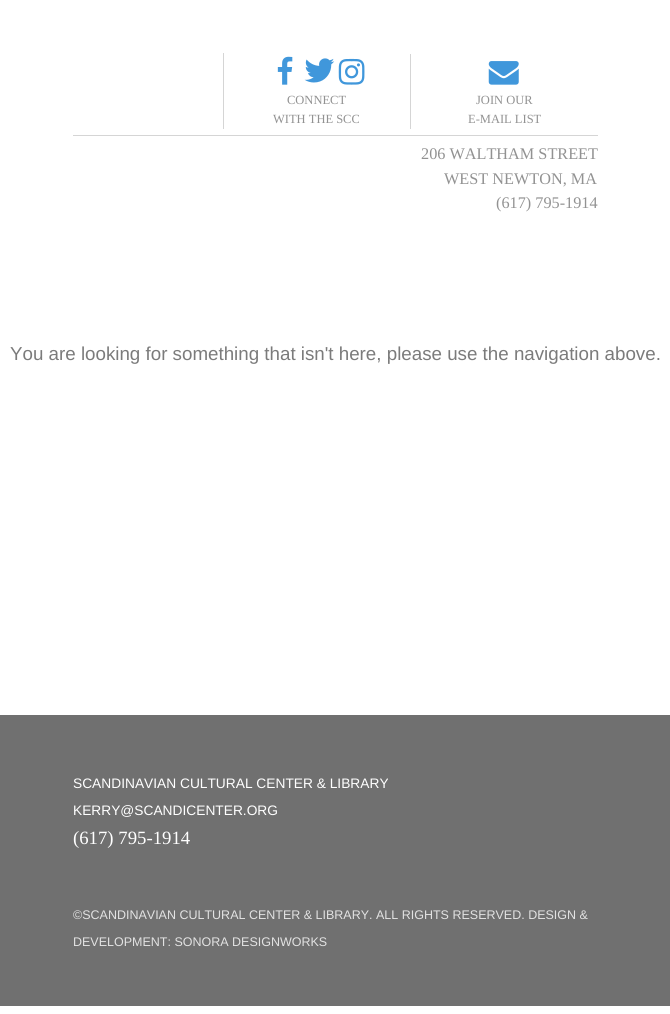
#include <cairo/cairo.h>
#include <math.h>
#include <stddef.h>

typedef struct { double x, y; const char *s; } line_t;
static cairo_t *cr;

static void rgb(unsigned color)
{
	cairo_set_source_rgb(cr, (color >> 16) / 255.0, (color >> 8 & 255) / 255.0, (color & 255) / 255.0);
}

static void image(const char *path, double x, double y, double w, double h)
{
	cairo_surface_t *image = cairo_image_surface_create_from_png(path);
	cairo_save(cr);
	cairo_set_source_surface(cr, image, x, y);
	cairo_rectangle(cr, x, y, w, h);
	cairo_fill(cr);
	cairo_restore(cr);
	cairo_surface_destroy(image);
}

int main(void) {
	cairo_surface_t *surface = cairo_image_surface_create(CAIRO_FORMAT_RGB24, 670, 1014);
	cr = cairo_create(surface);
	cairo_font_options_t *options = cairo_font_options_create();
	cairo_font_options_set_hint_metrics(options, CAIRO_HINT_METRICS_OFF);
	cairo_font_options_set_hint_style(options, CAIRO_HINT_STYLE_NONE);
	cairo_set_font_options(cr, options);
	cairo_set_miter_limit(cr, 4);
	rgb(0xffffff);
	cairo_paint(cr);
	rgb(0xd5d5d5);
	cairo_rectangle(cr, 223, 53, 1, 76);
	cairo_fill(cr);
	image("img/1.png", 277, 56, 16, 29);
	image("img/2.png", 304, 58, 31, 25);
	image("img/3.png", 338, 58, 27, 27);
	cairo_rectangle(cr, 410, 54, 1, 75);
	cairo_fill(cr);
	image("img/4.png", 488, 61, 31, 24);
	cairo_rectangle(cr, 73, 135, 525, 1);
	cairo_fill(cr);
	rgb(0x707070);
	cairo_rectangle(cr, 0, 715, 670, 291);
	cairo_fill(cr);
	cairo_select_font_face(cr, "Liberation Serif", CAIRO_FONT_SLANT_NORMAL, CAIRO_FONT_WEIGHT_NORMAL);
	cairo_set_font_size(cr, 12.5);
	rgb(0x929292);
	{
		static const line_t items[] = {
			{287, 104, "CONNECT"},
			{273, 123, "WITH THE SCC"},
			{476, 104, "JOIN OUR"},
			{468, 123, "E-MAIL LIST"},
		};
		for (size_t i = 0; i < sizeof items / sizeof *items; i++) {
			cairo_move_to(cr, items[i].x, items[i].y);
			cairo_show_text(cr, items[i].s);
		}
	}
	cairo_set_font_size(cr, 16.25);
	{
		static const line_t items[] = {
			{421, 159, "206 WALTHAM STREET"},
			{444, 184, "WEST NEWTON, MA"},
			{496, 208, "(617) 795-1914"},
		};
		for (size_t i = 0; i < sizeof items / sizeof *items; i++) {
			cairo_move_to(cr, items[i].x, items[i].y);
			cairo_show_text(cr, items[i].s);
		}
	}
	cairo_select_font_face(cr, "Liberation Sans", CAIRO_FONT_SLANT_NORMAL, CAIRO_FONT_WEIGHT_NORMAL);
	cairo_set_font_size(cr, 18.75);
	rgb(0x7b7b7b);
	cairo_move_to(cr, 10, 360);
	cairo_show_text(cr, "You are looking for something that isn't here, please use the navigation above.");
	cairo_set_font_size(cr, 13.75);
	rgb(0xffffff);
	cairo_move_to(cr, 73, 788);
	cairo_show_text(cr, "SCANDINAVIAN CULTURAL CENTER & LIBRARY");
	cairo_move_to(cr, 73, 815);
	cairo_show_text(cr, "KERRY@SCANDICENTER.ORG");
	cairo_select_font_face(cr, "Liberation Serif", CAIRO_FONT_SLANT_NORMAL, CAIRO_FONT_WEIGHT_NORMAL);
	cairo_set_font_size(cr, 18.75);
	cairo_move_to(cr, 73, 844);
	cairo_show_text(cr, "(617) 795-1914");
	cairo_select_font_face(cr, "Liberation Sans", CAIRO_FONT_SLANT_NORMAL, CAIRO_FONT_WEIGHT_NORMAL);
	cairo_set_font_size(cr, 12.5);
	rgb(0xe2e2e2);
	cairo_move_to(cr, 73, 919);
	cairo_show_text(cr, "©SCANDINAVIAN CULTURAL CENTER & LIBRARY. ALL RIGHTS RESERVED. DESIGN &");
	cairo_move_to(cr, 73, 946);
	cairo_show_text(cr, "DEVELOPMENT: SONORA DESIGNWORKS");
	cairo_surface_write_to_png(surface, "page.png");
	cairo_font_options_destroy(options);
	cairo_destroy(cr);
	cairo_surface_destroy(surface);
	return 0;
}
